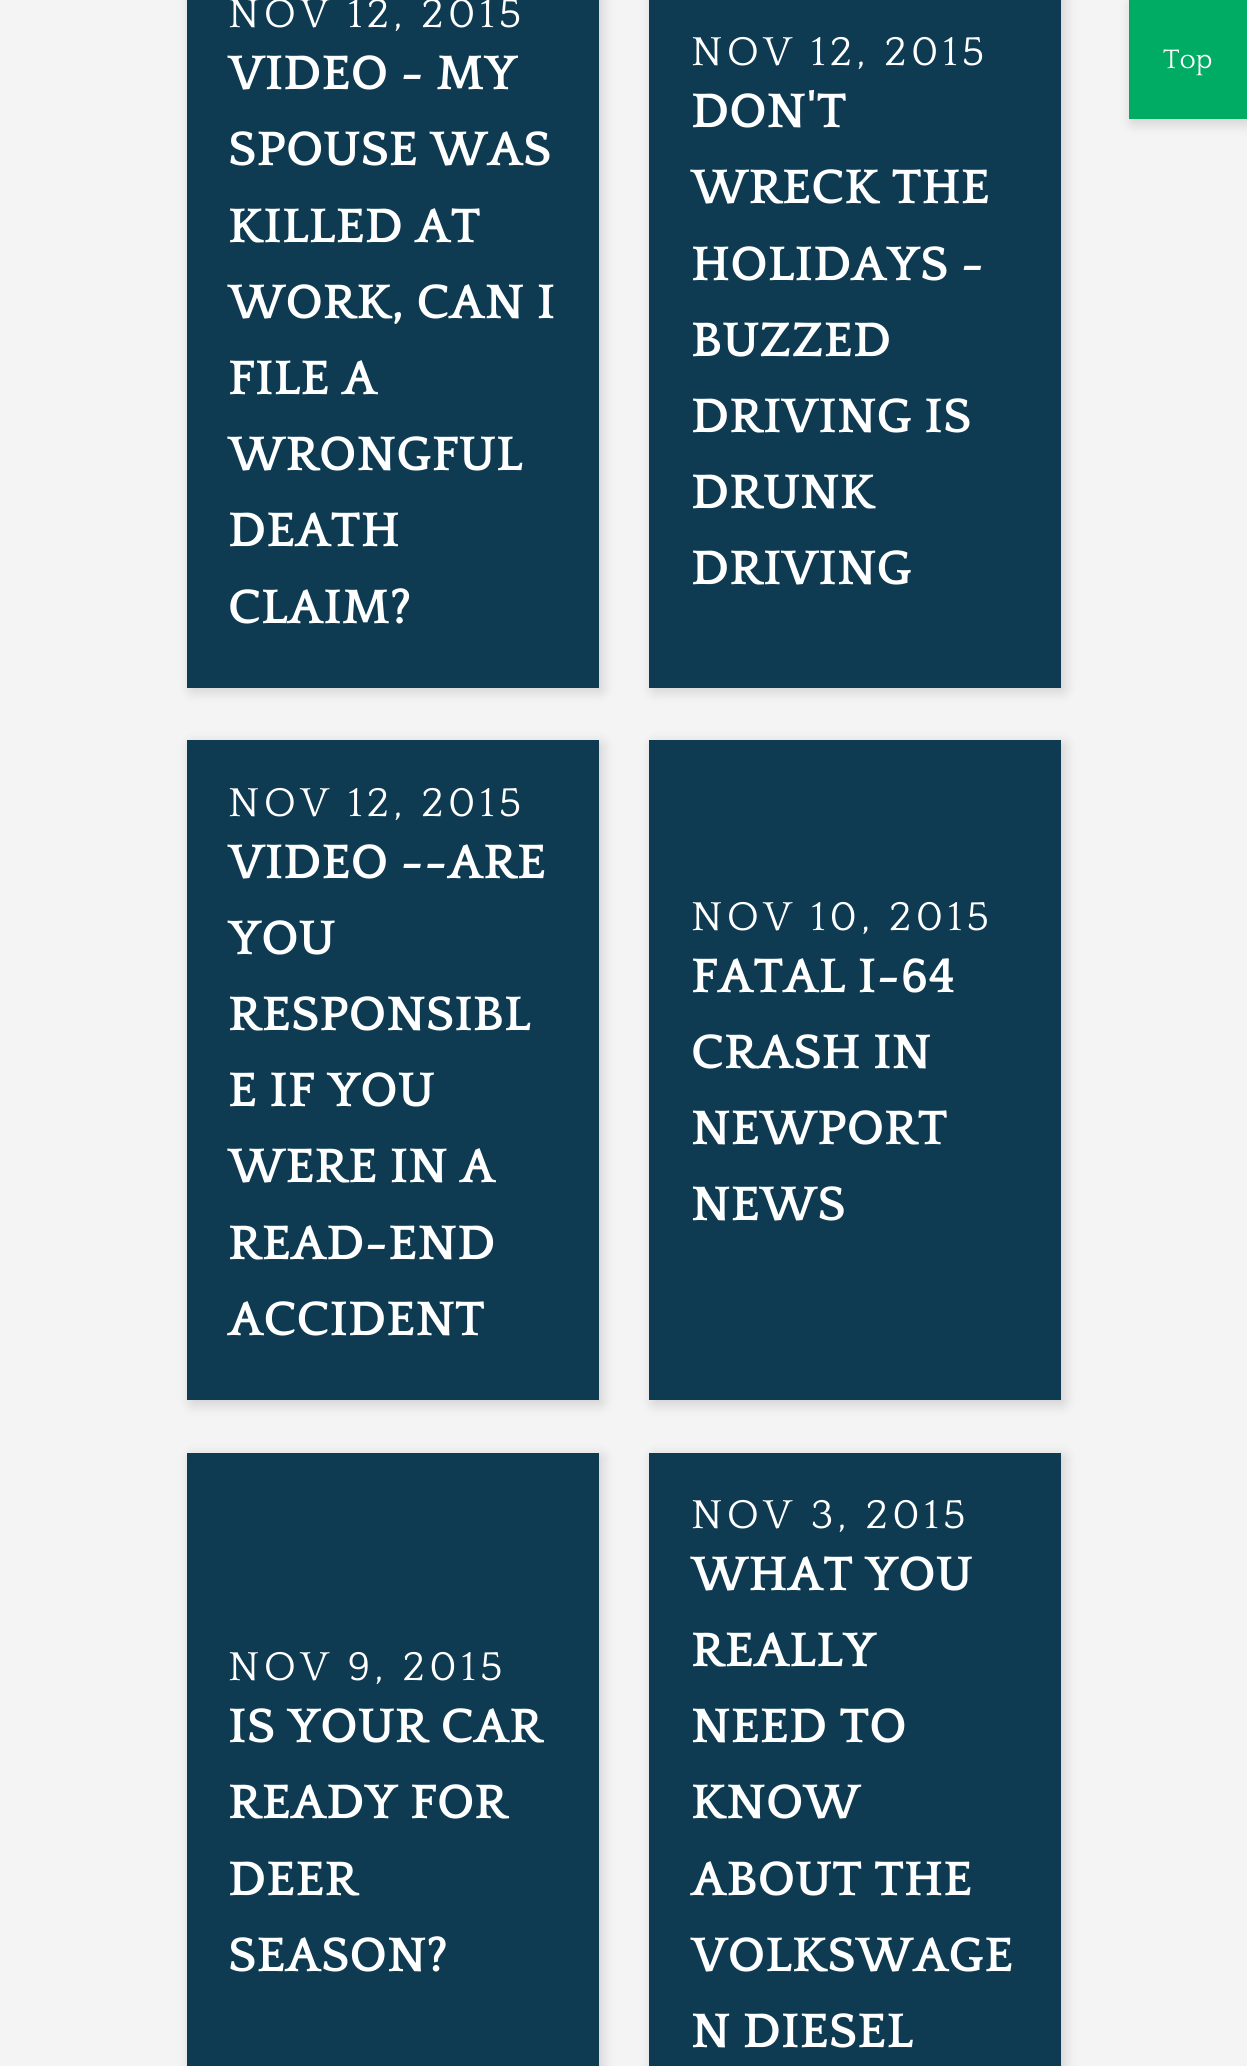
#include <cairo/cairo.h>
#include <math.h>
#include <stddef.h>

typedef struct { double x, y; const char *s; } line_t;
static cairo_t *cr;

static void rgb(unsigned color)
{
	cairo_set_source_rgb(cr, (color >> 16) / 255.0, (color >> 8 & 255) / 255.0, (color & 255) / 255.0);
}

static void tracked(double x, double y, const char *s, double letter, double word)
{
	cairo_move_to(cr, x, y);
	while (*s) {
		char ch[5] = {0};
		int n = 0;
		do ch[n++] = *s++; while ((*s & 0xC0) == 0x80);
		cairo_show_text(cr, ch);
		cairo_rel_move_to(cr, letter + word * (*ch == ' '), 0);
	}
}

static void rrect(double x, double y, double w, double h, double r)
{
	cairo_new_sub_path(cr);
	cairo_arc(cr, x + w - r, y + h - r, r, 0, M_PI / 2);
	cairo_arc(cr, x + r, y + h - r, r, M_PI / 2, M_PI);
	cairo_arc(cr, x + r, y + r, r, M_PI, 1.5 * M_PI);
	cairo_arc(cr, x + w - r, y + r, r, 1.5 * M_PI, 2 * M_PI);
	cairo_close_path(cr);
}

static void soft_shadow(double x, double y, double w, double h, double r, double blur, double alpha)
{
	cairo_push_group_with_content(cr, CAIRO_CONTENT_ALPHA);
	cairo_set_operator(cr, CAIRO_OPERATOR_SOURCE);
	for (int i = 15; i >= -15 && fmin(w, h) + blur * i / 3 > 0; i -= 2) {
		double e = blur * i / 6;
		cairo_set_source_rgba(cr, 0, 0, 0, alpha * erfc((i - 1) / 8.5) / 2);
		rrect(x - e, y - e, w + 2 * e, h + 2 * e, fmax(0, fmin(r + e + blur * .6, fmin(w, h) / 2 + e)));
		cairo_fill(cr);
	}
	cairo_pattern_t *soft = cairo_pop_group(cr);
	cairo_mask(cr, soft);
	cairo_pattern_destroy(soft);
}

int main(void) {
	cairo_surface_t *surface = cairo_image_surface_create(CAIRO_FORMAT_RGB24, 1247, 2066);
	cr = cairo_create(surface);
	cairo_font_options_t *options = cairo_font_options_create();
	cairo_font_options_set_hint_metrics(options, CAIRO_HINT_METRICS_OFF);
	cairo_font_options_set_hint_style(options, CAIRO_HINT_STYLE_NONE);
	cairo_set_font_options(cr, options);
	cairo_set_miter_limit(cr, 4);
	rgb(0xf4f4f4);
	cairo_paint(cr);
	rgb(0x000000);
	soft_shadow(191, -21, 411, 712, 0, 7, 0.16);
	rgb(0x0e3b52);
	cairo_rectangle(cr, 187, 0, 412, 688);
	cairo_fill(cr);
	rgb(0x000000);
	soft_shadow(653, -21, 411, 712, 0, 7, 0.16);
	rgb(0x0e3b52);
	cairo_rectangle(cr, 649, 0, 412, 688);
	cairo_fill(cr);
	rgb(0x000000);
	soft_shadow(191, 744, 411, 660, 0, 7, 0.16);
	rgb(0x0e3b52);
	cairo_rectangle(cr, 187, 740, 412, 660);
	cairo_fill(cr);
	rgb(0x000000);
	soft_shadow(653, 744, 411, 660, 0, 7, 0.16);
	rgb(0x0e3b52);
	cairo_rectangle(cr, 649, 740, 412, 660);
	cairo_fill(cr);
	rgb(0x000000);
	soft_shadow(191, 1456, 411, 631, 0, 7, 0.16);
	rgb(0x0e3b52);
	cairo_rectangle(cr, 187, 1453, 412, 613);
	cairo_fill(cr);
	rgb(0x000000);
	soft_shadow(653, 1456, 411, 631, 0, 7, 0.16);
	rgb(0x0e3b52);
	cairo_rectangle(cr, 649, 1453, 412, 613);
	cairo_fill(cr);
	rgb(0x000000);
	soft_shadow(1132, 4, 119, 119, 0, 7, 0.16);
	rgb(0x00ac64);
	cairo_rectangle(cr, 1129, 0, 118, 119);
	cairo_fill(cr);
	cairo_select_font_face(cr, "Quattrocento", CAIRO_FONT_SLANT_NORMAL, CAIRO_FONT_WEIGHT_NORMAL);
	cairo_set_font_size(cr, 42.25);
	rgb(0xffffff);
	tracked(228, 27, "NOV 12, 2015", 4.25, 0);
	cairo_select_font_face(cr, "Quattrocento", CAIRO_FONT_SLANT_NORMAL, CAIRO_FONT_WEIGHT_BOLD);
	cairo_set_font_size(cr, 50.75);
	{
		static const line_t items[] = {
			{228, 89, "VIDEO - MY"},
			{228, 165, "SPOUSE WAS"},
			{228, 242, "KILLED AT"},
			{228, 318, "WORK, CAN I"},
			{228, 394, "FILE A"},
			{228, 470, "WRONGFUL"},
			{228, 546, "DEATH"},
			{228, 623, "CLAIM?"},
		};
		for (size_t i = 0; i < sizeof items / sizeof *items; i++) {
			cairo_move_to(cr, items[i].x, items[i].y);
			cairo_show_text(cr, items[i].s);
		}
	}
	cairo_select_font_face(cr, "Quattrocento", CAIRO_FONT_SLANT_NORMAL, CAIRO_FONT_WEIGHT_NORMAL);
	cairo_set_font_size(cr, 42.25);
	tracked(691, 65, "NOV 12, 2015", 4.25, 0);
	cairo_select_font_face(cr, "Quattrocento", CAIRO_FONT_SLANT_NORMAL, CAIRO_FONT_WEIGHT_BOLD);
	cairo_set_font_size(cr, 50.75);
	{
		static const line_t items[] = {
			{691, 127, "DON'T"},
			{691, 203, "WRECK THE"},
			{691, 280, "HOLIDAYS -"},
			{691, 356, "BUZZED"},
			{691, 432, "DRIVING IS"},
			{691, 508, "DRUNK"},
			{691, 584, "DRIVING"},
		};
		for (size_t i = 0; i < sizeof items / sizeof *items; i++) {
			cairo_move_to(cr, items[i].x, items[i].y);
			cairo_show_text(cr, items[i].s);
		}
	}
	cairo_select_font_face(cr, "Quattrocento", CAIRO_FONT_SLANT_NORMAL, CAIRO_FONT_WEIGHT_NORMAL);
	cairo_set_font_size(cr, 42.25);
	tracked(228, 816, "NOV 12, 2015", 4.25, 0);
	cairo_select_font_face(cr, "Quattrocento", CAIRO_FONT_SLANT_NORMAL, CAIRO_FONT_WEIGHT_BOLD);
	cairo_set_font_size(cr, 50.75);
	{
		static const line_t items[] = {
			{228, 878, "VIDEO --ARE"},
			{228, 954, "YOU"},
			{228, 1030, "RESPONSIBL"},
			{228, 1106, "E IF YOU"},
			{228, 1182, "WERE IN A"},
			{228, 1259, "READ-END"},
			{228, 1335, "ACCIDENT"},
		};
		for (size_t i = 0; i < sizeof items / sizeof *items; i++) {
			cairo_move_to(cr, items[i].x, items[i].y);
			cairo_show_text(cr, items[i].s);
		}
	}
	cairo_select_font_face(cr, "Quattrocento", CAIRO_FONT_SLANT_NORMAL, CAIRO_FONT_WEIGHT_NORMAL);
	cairo_set_font_size(cr, 42.25);
	tracked(691, 930, "NOV 10, 2015", 4.25, 0);
	cairo_select_font_face(cr, "Quattrocento", CAIRO_FONT_SLANT_NORMAL, CAIRO_FONT_WEIGHT_BOLD);
	cairo_set_font_size(cr, 50.75);
	{
		static const line_t items[] = {
			{691, 992, "FATAL I-64"},
			{691, 1068, "CRASH IN"},
			{691, 1144, "NEWPORT"},
			{691, 1220, "NEWS"},
		};
		for (size_t i = 0; i < sizeof items / sizeof *items; i++) {
			cairo_move_to(cr, items[i].x, items[i].y);
			cairo_show_text(cr, items[i].s);
		}
	}
	cairo_select_font_face(cr, "Quattrocento", CAIRO_FONT_SLANT_NORMAL, CAIRO_FONT_WEIGHT_NORMAL);
	cairo_set_font_size(cr, 42.25);
	tracked(228, 1680, "NOV 9, 2015", 4.25, 0);
	cairo_select_font_face(cr, "Quattrocento", CAIRO_FONT_SLANT_NORMAL, CAIRO_FONT_WEIGHT_BOLD);
	cairo_set_font_size(cr, 50.75);
	{
		static const line_t items[] = {
			{228, 1742, "IS YOUR CAR"},
			{228, 1818, "READY FOR"},
			{228, 1895, "DEER"},
			{228, 1971, "SEASON?"},
		};
		for (size_t i = 0; i < sizeof items / sizeof *items; i++) {
			cairo_move_to(cr, items[i].x, items[i].y);
			cairo_show_text(cr, items[i].s);
		}
	}
	cairo_select_font_face(cr, "Quattrocento", CAIRO_FONT_SLANT_NORMAL, CAIRO_FONT_WEIGHT_NORMAL);
	cairo_set_font_size(cr, 42.25);
	tracked(691, 1528, "NOV 3, 2015", 4.25, 0);
	cairo_select_font_face(cr, "Quattrocento", CAIRO_FONT_SLANT_NORMAL, CAIRO_FONT_WEIGHT_BOLD);
	cairo_set_font_size(cr, 50.75);
	{
		static const line_t items[] = {
			{691, 1590, "WHAT YOU"},
			{691, 1666, "REALLY"},
			{691, 1742, "NEED TO"},
			{691, 1818, "KNOW"},
			{691, 1895, "ABOUT THE"},
			{691, 1971, "VOLKSWAGE"},
			{691, 2047, "N DIESEL"},
		};
		for (size_t i = 0; i < sizeof items / sizeof *items; i++) {
			cairo_move_to(cr, items[i].x, items[i].y);
			cairo_show_text(cr, items[i].s);
		}
	}
	cairo_select_font_face(cr, "Quattrocento", CAIRO_FONT_SLANT_NORMAL, CAIRO_FONT_WEIGHT_NORMAL);
	cairo_set_font_size(cr, 28);
	cairo_move_to(cr, 1163, 68);
	cairo_show_text(cr, "Top");
	cairo_surface_write_to_png(surface, "page.png");
	cairo_font_options_destroy(options);
	cairo_destroy(cr);
	cairo_surface_destroy(surface);
	return 0;
}
